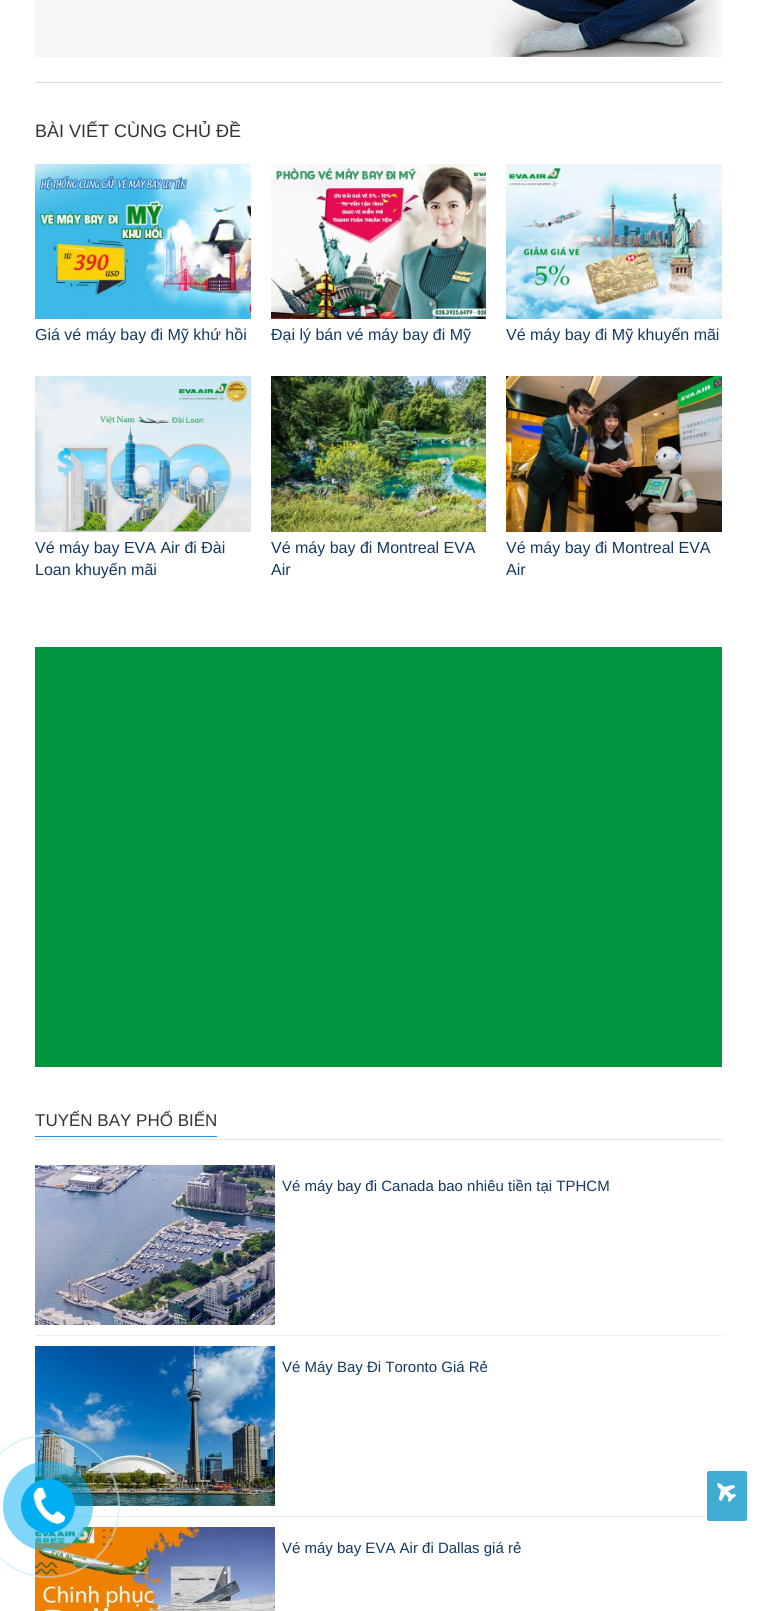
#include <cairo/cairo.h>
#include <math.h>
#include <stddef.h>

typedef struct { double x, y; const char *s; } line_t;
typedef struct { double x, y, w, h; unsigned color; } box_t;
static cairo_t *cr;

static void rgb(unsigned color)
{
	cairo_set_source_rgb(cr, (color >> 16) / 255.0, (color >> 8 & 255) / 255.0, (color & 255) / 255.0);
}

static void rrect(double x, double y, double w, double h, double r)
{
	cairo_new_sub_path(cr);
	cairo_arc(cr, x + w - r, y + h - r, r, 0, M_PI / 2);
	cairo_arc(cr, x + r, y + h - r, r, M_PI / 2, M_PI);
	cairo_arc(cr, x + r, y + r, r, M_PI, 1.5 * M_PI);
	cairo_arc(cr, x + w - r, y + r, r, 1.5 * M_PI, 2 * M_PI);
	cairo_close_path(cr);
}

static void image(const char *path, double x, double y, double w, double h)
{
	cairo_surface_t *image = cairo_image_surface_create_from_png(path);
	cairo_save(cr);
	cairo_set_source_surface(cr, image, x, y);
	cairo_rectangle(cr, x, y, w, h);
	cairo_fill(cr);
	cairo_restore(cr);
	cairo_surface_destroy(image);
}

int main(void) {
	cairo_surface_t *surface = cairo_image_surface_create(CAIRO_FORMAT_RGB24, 757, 1611);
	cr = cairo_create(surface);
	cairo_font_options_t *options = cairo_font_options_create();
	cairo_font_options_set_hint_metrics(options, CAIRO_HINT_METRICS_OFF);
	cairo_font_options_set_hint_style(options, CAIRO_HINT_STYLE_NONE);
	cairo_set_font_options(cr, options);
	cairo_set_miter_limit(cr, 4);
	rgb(0xffffff);
	cairo_paint(cr);
	rgb(0xd8d8d8);
	cairo_rectangle(cr, 35, 82, 687, 1);
	cairo_fill(cr);
	rgb(0xf7f7f7);
	cairo_rectangle(cr, 35, 0, 687, 57);
	cairo_fill(cr);
	image("img/1.png", 491, 0, 227, 57);
	image("img/2.png", 35, 164, 216, 155);
	image("img/3.png", 271, 164, 215, 155);
	image("img/4.png", 506, 164, 216, 155);
	image("img/5.png", 35, 376, 216, 156);
	image("img/6.png", 271, 376, 215, 156);
	image("img/7.png", 506, 376, 216, 156);
	{
		static const box_t items[] = {
			{35, 647, 687, 420, 0x01953f},
			{35, 1139, 687, 1, 0xe1e1e1},
			{35, 1136, 182, 1, 0x2196f3},
			{35, 1335, 687, 1, 0xecedee},
		};
		for (size_t i = 0; i < sizeof items / sizeof *items; i++) {
			rgb(items[i].color);
			cairo_rectangle(cr, items[i].x, items[i].y, items[i].w, items[i].h);
			cairo_fill(cr);
		}
	}
	image("img/8.png", 35, 1165, 240, 160);
	cairo_rectangle(cr, 72, 1516, 635, 1);
	cairo_fill(cr);
	image("img/9.png", 35, 1346, 240, 160);
	image("img/10.png", 35, 1527, 240, 84);
	cairo_arc(cr, 48, 1506, 71, 0, 2 * M_PI);
	cairo_set_source_rgba(cr, 0.749, 0.922, 0.988, 0.5);
	cairo_stroke(cr);
	cairo_set_source_rgba(cr, 0, 0.686, 0.949, 0.5);
	cairo_arc(cr, 48, 1506, 45, 0, 2 * M_PI);
	cairo_fill(cr);
	rgb(0x00aff2);
	cairo_arc(cr, 48, 1506, 27, 0, 2 * M_PI);
	cairo_fill(cr);
	image("img/11.png", 33, 1487, 33, 37);
	rgb(0x41acd3);
	rrect(707, 1471, 40, 50, 2);
	cairo_fill(cr);
	image("img/12.png", 717, 1483, 19, 19);
	cairo_select_font_face(cr, "Liberation Sans", CAIRO_FONT_SLANT_NORMAL, CAIRO_FONT_WEIGHT_NORMAL);
	cairo_set_font_size(cr, 18);
	rgb(0x333333);
	cairo_move_to(cr, 35, 137);
	cairo_show_text(cr, "BÀI VIẾT CÙNG CHỦ ĐỀ");
	cairo_set_font_size(cr, 16);
	rgb(0x143962);
	{
		static const line_t items[] = {
			{35, 340, "Giá vé máy bay đi Mỹ khứ hồi"},
			{271, 340, "Đại lý bán vé máy bay đi Mỹ"},
			{506, 340, "Vé máy bay đi Mỹ khuyến mãi"},
			{35, 553, "Vé máy bay EVA Air đi Đài"},
			{35, 575, "Loan khuyến mãi"},
			{271, 553, "Vé máy bay đi Montreal EVA"},
			{271, 575, "Air"},
			{506, 553, "Vé máy bay đi Montreal EVA"},
			{506, 575, "Air"},
		};
		for (size_t i = 0; i < sizeof items / sizeof *items; i++) {
			cairo_move_to(cr, items[i].x, items[i].y);
			cairo_show_text(cr, items[i].s);
		}
	}
	cairo_set_font_size(cr, 17);
	rgb(0x333333);
	cairo_move_to(cr, 35, 1126);
	cairo_show_text(cr, "TUYẾN BAY PHỔ BIẾN");
	cairo_set_font_size(cr, 15);
	rgb(0x143962);
	{
		static const line_t items[] = {
			{282, 1191, "Vé máy bay đi Canada bao nhiêu tiền tại TPHCM"},
			{282, 1372, "Vé Máy Bay Đi Toronto Giá Rẻ"},
			{282, 1553, "Vé máy bay EVA Air đi Dallas giá rẻ"},
		};
		for (size_t i = 0; i < sizeof items / sizeof *items; i++) {
			cairo_move_to(cr, items[i].x, items[i].y);
			cairo_show_text(cr, items[i].s);
		}
	}
	cairo_surface_write_to_png(surface, "page.png");
	cairo_font_options_destroy(options);
	cairo_destroy(cr);
	cairo_surface_destroy(surface);
	return 0;
}
